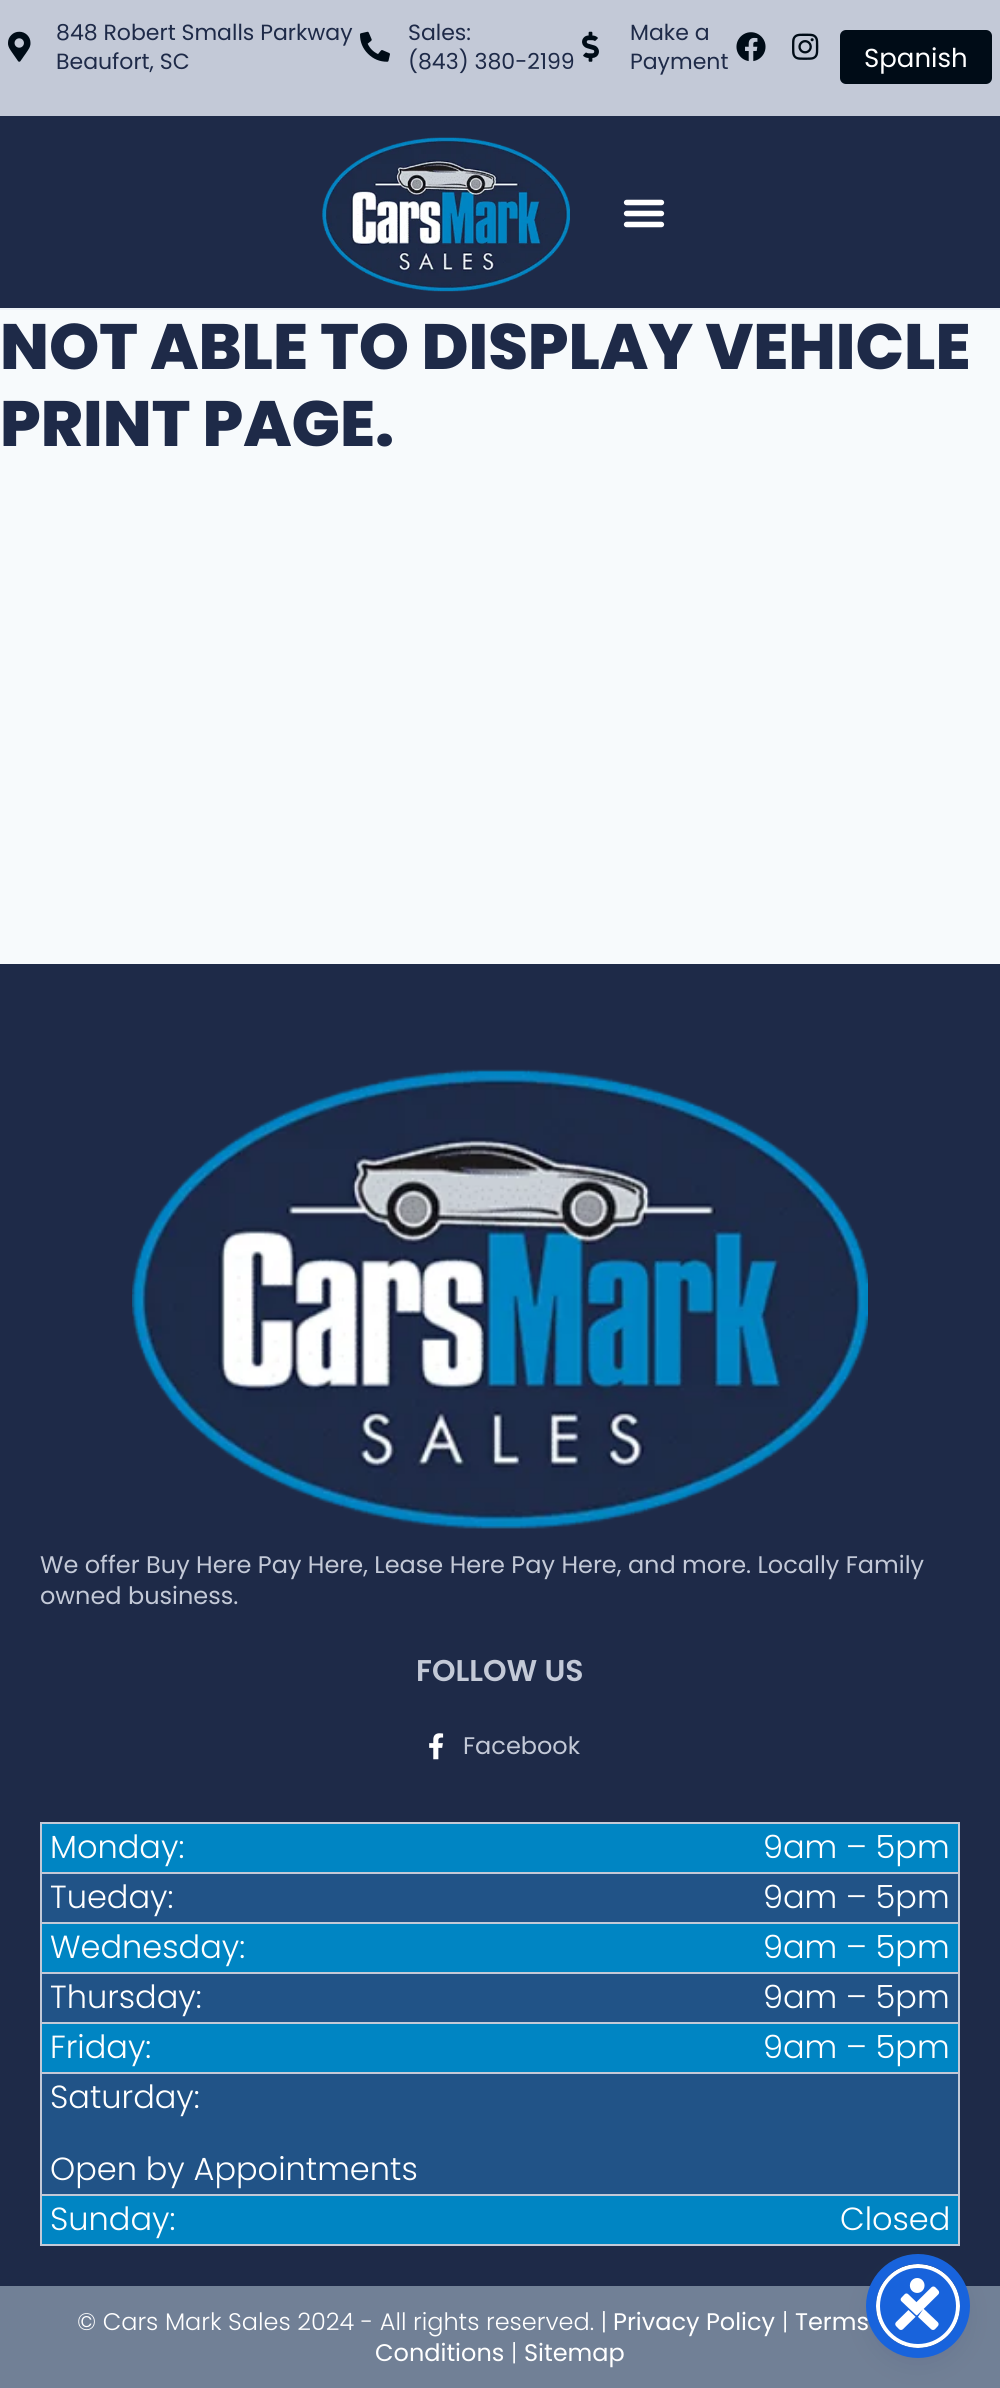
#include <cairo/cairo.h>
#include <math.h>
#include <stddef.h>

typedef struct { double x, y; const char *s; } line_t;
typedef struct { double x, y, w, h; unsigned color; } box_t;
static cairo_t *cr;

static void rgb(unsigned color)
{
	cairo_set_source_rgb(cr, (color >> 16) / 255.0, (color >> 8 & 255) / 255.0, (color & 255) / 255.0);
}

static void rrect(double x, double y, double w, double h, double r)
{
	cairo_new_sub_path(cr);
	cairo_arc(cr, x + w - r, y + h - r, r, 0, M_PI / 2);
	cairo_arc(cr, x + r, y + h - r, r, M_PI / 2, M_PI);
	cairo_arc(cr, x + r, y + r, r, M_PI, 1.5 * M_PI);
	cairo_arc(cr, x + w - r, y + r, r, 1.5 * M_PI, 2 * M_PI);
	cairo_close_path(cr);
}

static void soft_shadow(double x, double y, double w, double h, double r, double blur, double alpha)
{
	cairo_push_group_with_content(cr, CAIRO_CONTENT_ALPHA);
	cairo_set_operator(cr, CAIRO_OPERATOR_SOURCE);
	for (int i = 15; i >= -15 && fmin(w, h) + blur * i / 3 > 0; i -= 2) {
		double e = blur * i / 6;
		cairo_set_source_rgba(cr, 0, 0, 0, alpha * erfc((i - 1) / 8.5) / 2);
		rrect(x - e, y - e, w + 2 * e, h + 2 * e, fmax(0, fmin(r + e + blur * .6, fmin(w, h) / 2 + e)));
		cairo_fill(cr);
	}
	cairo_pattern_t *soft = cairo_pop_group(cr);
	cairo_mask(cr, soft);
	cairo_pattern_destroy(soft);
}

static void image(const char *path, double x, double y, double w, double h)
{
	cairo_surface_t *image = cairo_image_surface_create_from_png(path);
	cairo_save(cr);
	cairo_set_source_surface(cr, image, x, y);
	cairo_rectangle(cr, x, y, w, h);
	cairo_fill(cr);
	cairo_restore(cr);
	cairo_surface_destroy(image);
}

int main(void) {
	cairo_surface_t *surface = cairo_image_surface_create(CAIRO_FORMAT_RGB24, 1000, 2388);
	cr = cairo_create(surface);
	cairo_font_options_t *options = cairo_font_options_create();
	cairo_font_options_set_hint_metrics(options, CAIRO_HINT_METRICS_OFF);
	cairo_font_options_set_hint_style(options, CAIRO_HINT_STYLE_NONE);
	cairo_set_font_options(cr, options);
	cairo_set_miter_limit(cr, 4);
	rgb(0xf7fafc);
	cairo_paint(cr);
	rgb(0xedf2f7);
	cairo_rectangle(cr, 0, 308, 1000, 2);
	cairo_fill(cr);
	rgb(0xc3c9d7);
	cairo_rectangle(cr, 0, 0, 1000, 116);
	cairo_fill(cr);
	image("img/1.png", 8, 31, 23, 31);
	image("img/2.png", 360, 31, 30, 31);
	image("img/3.png", 582, 31, 17, 31);
	image("img/4.png", 736, 32, 30, 30);
	image("img/5.png", 792, 33, 27, 27);
	rgb(0x000c17);
	rrect(840, 30, 152, 54, 6);
	cairo_fill(cr);
	rgb(0x1e2a48);
	cairo_rectangle(cr, 0, 116, 1000, 192);
	cairo_fill(cr);
	image("img/6.png", 322, 137, 248, 155);
	image("img/7.png", 623, 199, 42, 29);
	cairo_rectangle(cr, 0, 964, 1000, 1322);
	cairo_fill(cr);
	image("img/8.png", 132, 1069, 736, 460);
	image("img/9.png", 429, 1733, 15, 27);
	rgb(0x0085c3);
	cairo_rectangle(cr, 41, 1823, 918, 50);
	cairo_fill_preserve(cr);
	rgb(0xc3c9d7);
	cairo_stroke(cr);
	{
		static const box_t items[] = {
			{42, 1874, 916, 48, 0x215387},
			{958, 1874, 2, 48, 0xc3c9d7},
			{40, 1874, 2, 48, 0xc3c9d7},
		};
		for (size_t i = 0; i < sizeof items / sizeof *items; i++) {
			rgb(items[i].color);
			cairo_rectangle(cr, items[i].x, items[i].y, items[i].w, items[i].h);
			cairo_fill(cr);
		}
	}
	rgb(0x0085c3);
	cairo_rectangle(cr, 41, 1923, 918, 50);
	cairo_fill_preserve(cr);
	rgb(0xc3c9d7);
	cairo_stroke(cr);
	{
		static const box_t items[] = {
			{42, 1974, 916, 48, 0x215387},
			{958, 1974, 2, 48, 0xc3c9d7},
			{40, 1974, 2, 48, 0xc3c9d7},
		};
		for (size_t i = 0; i < sizeof items / sizeof *items; i++) {
			rgb(items[i].color);
			cairo_rectangle(cr, items[i].x, items[i].y, items[i].w, items[i].h);
			cairo_fill(cr);
		}
	}
	rgb(0x0085c3);
	cairo_rectangle(cr, 41, 2023, 918, 50);
	cairo_fill_preserve(cr);
	rgb(0xc3c9d7);
	cairo_stroke(cr);
	{
		static const box_t items[] = {
			{42, 2074, 916, 120, 0x215387},
			{958, 2074, 2, 120, 0xc3c9d7},
			{40, 2074, 2, 120, 0xc3c9d7},
		};
		for (size_t i = 0; i < sizeof items / sizeof *items; i++) {
			rgb(items[i].color);
			cairo_rectangle(cr, items[i].x, items[i].y, items[i].w, items[i].h);
			cairo_fill(cr);
		}
	}
	rgb(0x0085c3);
	cairo_rectangle(cr, 41, 2195, 918, 50);
	cairo_fill_preserve(cr);
	rgb(0xc3c9d7);
	cairo_stroke(cr);
	rgb(0x718096);
	cairo_rectangle(cr, 0, 2286, 1000, 102);
	cairo_fill(cr);
	rgb(0x5d6494);
	soft_shadow(876, 2268, 84, 84, 42, 4, 0.2);
	rgb(0x252c61);
	soft_shadow(876, 2274, 84, 84, 42, 15, 0.15);
	rgb(0x1863dc);
	cairo_arc(cr, 918, 2306, 40, 0, 2 * M_PI);
	cairo_fill_preserve(cr);
	rgb(0xffffff);
	cairo_set_line_width(cr, 4);
	cairo_stroke(cr);
	cairo_select_font_face(cr, "Poppins", CAIRO_FONT_SLANT_NORMAL, CAIRO_FONT_WEIGHT_NORMAL);
	cairo_set_font_size(cr, 22);
	rgb(0x1e2a48);
	{
		static const line_t items[] = {
			{56, 40, "848 Robert Smalls Parkway"},
			{56, 69, "Beaufort, SC"},
			{408, 40, "Sales:"},
			{408, 69, "(843) 380-2199"},
			{630, 40, "Make a"},
			{630, 69, "Payment"},
		};
		for (size_t i = 0; i < sizeof items / sizeof *items; i++) {
			cairo_move_to(cr, items[i].x, items[i].y);
			cairo_show_text(cr, items[i].s);
		}
	}
	cairo_set_font_size(cr, 26);
	rgb(0xffffff);
	cairo_move_to(cr, 864, 67);
	cairo_show_text(cr, "Spanish");
	cairo_select_font_face(cr, "Poppins ExtraBold", CAIRO_FONT_SLANT_NORMAL, CAIRO_FONT_WEIGHT_NORMAL);
	cairo_set_font_size(cr, 64);
	rgb(0x1e2a48);
	cairo_move_to(cr, 0, 369);
	cairo_show_text(cr, "NOT ABLE TO DISPLAY VEHICLE");
	cairo_move_to(cr, 0, 446);
	cairo_show_text(cr, "PRINT PAGE.");
	cairo_select_font_face(cr, "Poppins", CAIRO_FONT_SLANT_NORMAL, CAIRO_FONT_WEIGHT_NORMAL);
	cairo_set_font_size(cr, 24);
	rgb(0xc3c9d7);
	cairo_move_to(cr, 40, 1573);
	cairo_show_text(cr, "We offer Buy Here Pay Here, Lease Here Pay Here, and more. Locally Family");
	cairo_move_to(cr, 40, 1604);
	cairo_show_text(cr, "owned business.");
	cairo_select_font_face(cr, "Poppins SemiBold", CAIRO_FONT_SLANT_NORMAL, CAIRO_FONT_WEIGHT_NORMAL);
	cairo_set_font_size(cr, 30);
	cairo_move_to(cr, 416, 1681);
	cairo_show_text(cr, "FOLLOW US");
	cairo_select_font_face(cr, "Poppins", CAIRO_FONT_SLANT_NORMAL, CAIRO_FONT_WEIGHT_NORMAL);
	cairo_set_font_size(cr, 24);
	cairo_move_to(cr, 463, 1754);
	cairo_show_text(cr, "Facebook");
	cairo_select_font_face(cr, "Poppins Light", CAIRO_FONT_SLANT_NORMAL, CAIRO_FONT_WEIGHT_NORMAL);
	cairo_set_font_size(cr, 32);
	rgb(0xffffff);
	{
		static const line_t items[] = {
			{50, 1858, "Monday:"},
			{763, 1858, "9am – 5pm"},
			{50, 1908, "Tueday:"},
			{763, 1908, "9am – 5pm"},
			{50, 1958, "Wednesday:"},
			{763, 1958, "9am – 5pm"},
			{50, 2008, "Thursday:"},
			{763, 2008, "9am – 5pm"},
			{50, 2058, "Friday:"},
			{763, 2058, "9am – 5pm"},
			{50, 2108, "Saturday:"},
			{50, 2180, "Open by Appointments"},
			{50, 2230, "Sunday:"},
			{840, 2230, "Closed"},
		};
		for (size_t i = 0; i < sizeof items / sizeof *items; i++) {
			cairo_move_to(cr, items[i].x, items[i].y);
			cairo_show_text(cr, items[i].s);
		}
	}
	cairo_set_font_size(cr, 24);
	cairo_move_to(cr, 77, 2330);
	cairo_show_text(cr, "© Cars Mark Sales 2024 - All rights reserved. |");
	cairo_select_font_face(cr, "Poppins", CAIRO_FONT_SLANT_NORMAL, CAIRO_FONT_WEIGHT_NORMAL);
	cairo_move_to(cr, 613, 2330);
	cairo_show_text(cr, "Privacy Policy");
	cairo_select_font_face(cr, "Poppins Light", CAIRO_FONT_SLANT_NORMAL, CAIRO_FONT_WEIGHT_NORMAL);
	cairo_move_to(cr, 782, 2330);
	cairo_show_text(cr, "|");
	cairo_select_font_face(cr, "Poppins", CAIRO_FONT_SLANT_NORMAL, CAIRO_FONT_WEIGHT_NORMAL);
	cairo_move_to(cr, 795, 2330);
	cairo_show_text(cr, "Terms");
	cairo_move_to(cr, 375, 2361);
	cairo_show_text(cr, "Conditions");
	cairo_select_font_face(cr, "Poppins Light", CAIRO_FONT_SLANT_NORMAL, CAIRO_FONT_WEIGHT_NORMAL);
	cairo_move_to(cr, 511, 2361);
	cairo_show_text(cr, "|");
	cairo_select_font_face(cr, "Poppins", CAIRO_FONT_SLANT_NORMAL, CAIRO_FONT_WEIGHT_NORMAL);
	cairo_move_to(cr, 524, 2361);
	cairo_show_text(cr, "Sitemap");
	cairo_new_path(cr);
	cairo_arc(cr, 918, 2306, 47, 0, 2 * M_PI);
	rgb(0x1863dc);
	cairo_set_line_width(cr, 10);
	cairo_stroke(cr);
	image("img/10.png", 895, 2278, 45, 52);
	cairo_surface_write_to_png(surface, "page.png");
	cairo_font_options_destroy(options);
	cairo_destroy(cr);
	cairo_surface_destroy(surface);
	return 0;
}
